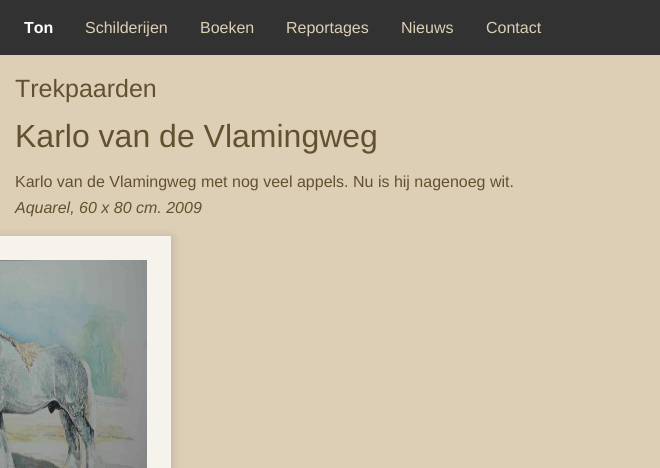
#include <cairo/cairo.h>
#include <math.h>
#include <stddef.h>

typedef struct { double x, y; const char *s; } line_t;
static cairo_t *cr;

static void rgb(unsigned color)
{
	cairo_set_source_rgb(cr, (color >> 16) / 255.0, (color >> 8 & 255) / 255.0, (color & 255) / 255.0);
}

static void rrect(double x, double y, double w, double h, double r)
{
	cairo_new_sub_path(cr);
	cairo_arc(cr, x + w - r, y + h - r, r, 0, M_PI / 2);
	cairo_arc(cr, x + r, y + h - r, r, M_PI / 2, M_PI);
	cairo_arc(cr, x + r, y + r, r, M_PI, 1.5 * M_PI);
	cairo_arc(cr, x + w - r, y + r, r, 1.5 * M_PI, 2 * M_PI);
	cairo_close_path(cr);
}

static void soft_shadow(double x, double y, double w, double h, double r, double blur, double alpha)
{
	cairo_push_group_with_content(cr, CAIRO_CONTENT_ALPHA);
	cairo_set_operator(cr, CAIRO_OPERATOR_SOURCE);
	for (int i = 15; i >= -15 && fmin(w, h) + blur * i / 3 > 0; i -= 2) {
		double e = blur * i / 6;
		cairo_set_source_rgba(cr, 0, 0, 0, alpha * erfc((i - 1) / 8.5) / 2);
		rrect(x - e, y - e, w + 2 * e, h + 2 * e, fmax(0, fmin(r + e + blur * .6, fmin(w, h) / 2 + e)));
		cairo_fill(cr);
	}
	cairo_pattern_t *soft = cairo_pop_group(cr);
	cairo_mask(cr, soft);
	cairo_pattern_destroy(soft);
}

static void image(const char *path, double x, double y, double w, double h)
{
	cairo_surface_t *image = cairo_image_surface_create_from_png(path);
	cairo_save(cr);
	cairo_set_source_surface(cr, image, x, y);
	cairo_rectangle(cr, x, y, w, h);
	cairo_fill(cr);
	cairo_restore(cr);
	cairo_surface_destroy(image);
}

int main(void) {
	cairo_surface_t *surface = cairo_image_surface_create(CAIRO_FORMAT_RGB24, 660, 468);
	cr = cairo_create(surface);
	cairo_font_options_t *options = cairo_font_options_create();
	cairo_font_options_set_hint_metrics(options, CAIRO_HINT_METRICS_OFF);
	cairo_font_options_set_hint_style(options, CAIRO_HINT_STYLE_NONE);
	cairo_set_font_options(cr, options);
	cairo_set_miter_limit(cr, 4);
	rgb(0xdccfb5);
	cairo_paint(cr);
	rgb(0x333232);
	cairo_rectangle(cr, 0, 0, 660, 55);
	cairo_fill(cr);
	rgb(0x000000);
	soft_shadow(-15, 237, 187, 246, 0, 5, 0.15);
	rgb(0xf6f3ed);
	cairo_rectangle(cr, 0, 236, 171, 232);
	cairo_fill(cr);
	image("img/1.png", 0, 260, 147, 208);
	cairo_select_font_face(cr, "Liberation Sans", CAIRO_FONT_SLANT_NORMAL, CAIRO_FONT_WEIGHT_BOLD);
	cairo_set_font_size(cr, 16);
	rgb(0xffffff);
	cairo_move_to(cr, 24, 33);
	cairo_show_text(cr, "Ton");
	cairo_select_font_face(cr, "Liberation Sans", CAIRO_FONT_SLANT_NORMAL, CAIRO_FONT_WEIGHT_NORMAL);
	rgb(0xdccfb5);
	{
		static const line_t items[] = {
			{85, 33, "Schilderijen"},
			{200, 33, "Boeken"},
			{286, 33, "Reportages"},
			{401, 33, "Nieuws"},
			{486, 33, "Contact"},
		};
		for (size_t i = 0; i < sizeof items / sizeof *items; i++) {
			cairo_move_to(cr, items[i].x, items[i].y);
			cairo_show_text(cr, items[i].s);
		}
	}
	cairo_set_font_size(cr, 25);
	rgb(0x62512f);
	cairo_move_to(cr, 15, 97);
	cairo_show_text(cr, "Trekpaarden");
	cairo_set_font_size(cr, 32);
	cairo_move_to(cr, 15, 147);
	cairo_show_text(cr, "Karlo van de Vlamingweg");
	cairo_set_font_size(cr, 16);
	cairo_move_to(cr, 15, 187);
	cairo_show_text(cr, "Karlo van de Vlamingweg met nog veel appels. Nu is hij nagenoeg wit.");
	cairo_select_font_face(cr, "Liberation Sans", CAIRO_FONT_SLANT_ITALIC, CAIRO_FONT_WEIGHT_NORMAL);
	cairo_move_to(cr, 15, 213);
	cairo_show_text(cr, "Aquarel, 60 x 80 cm. 2009");
	cairo_surface_write_to_png(surface, "page.png");
	cairo_font_options_destroy(options);
	cairo_destroy(cr);
	cairo_surface_destroy(surface);
	return 0;
}
